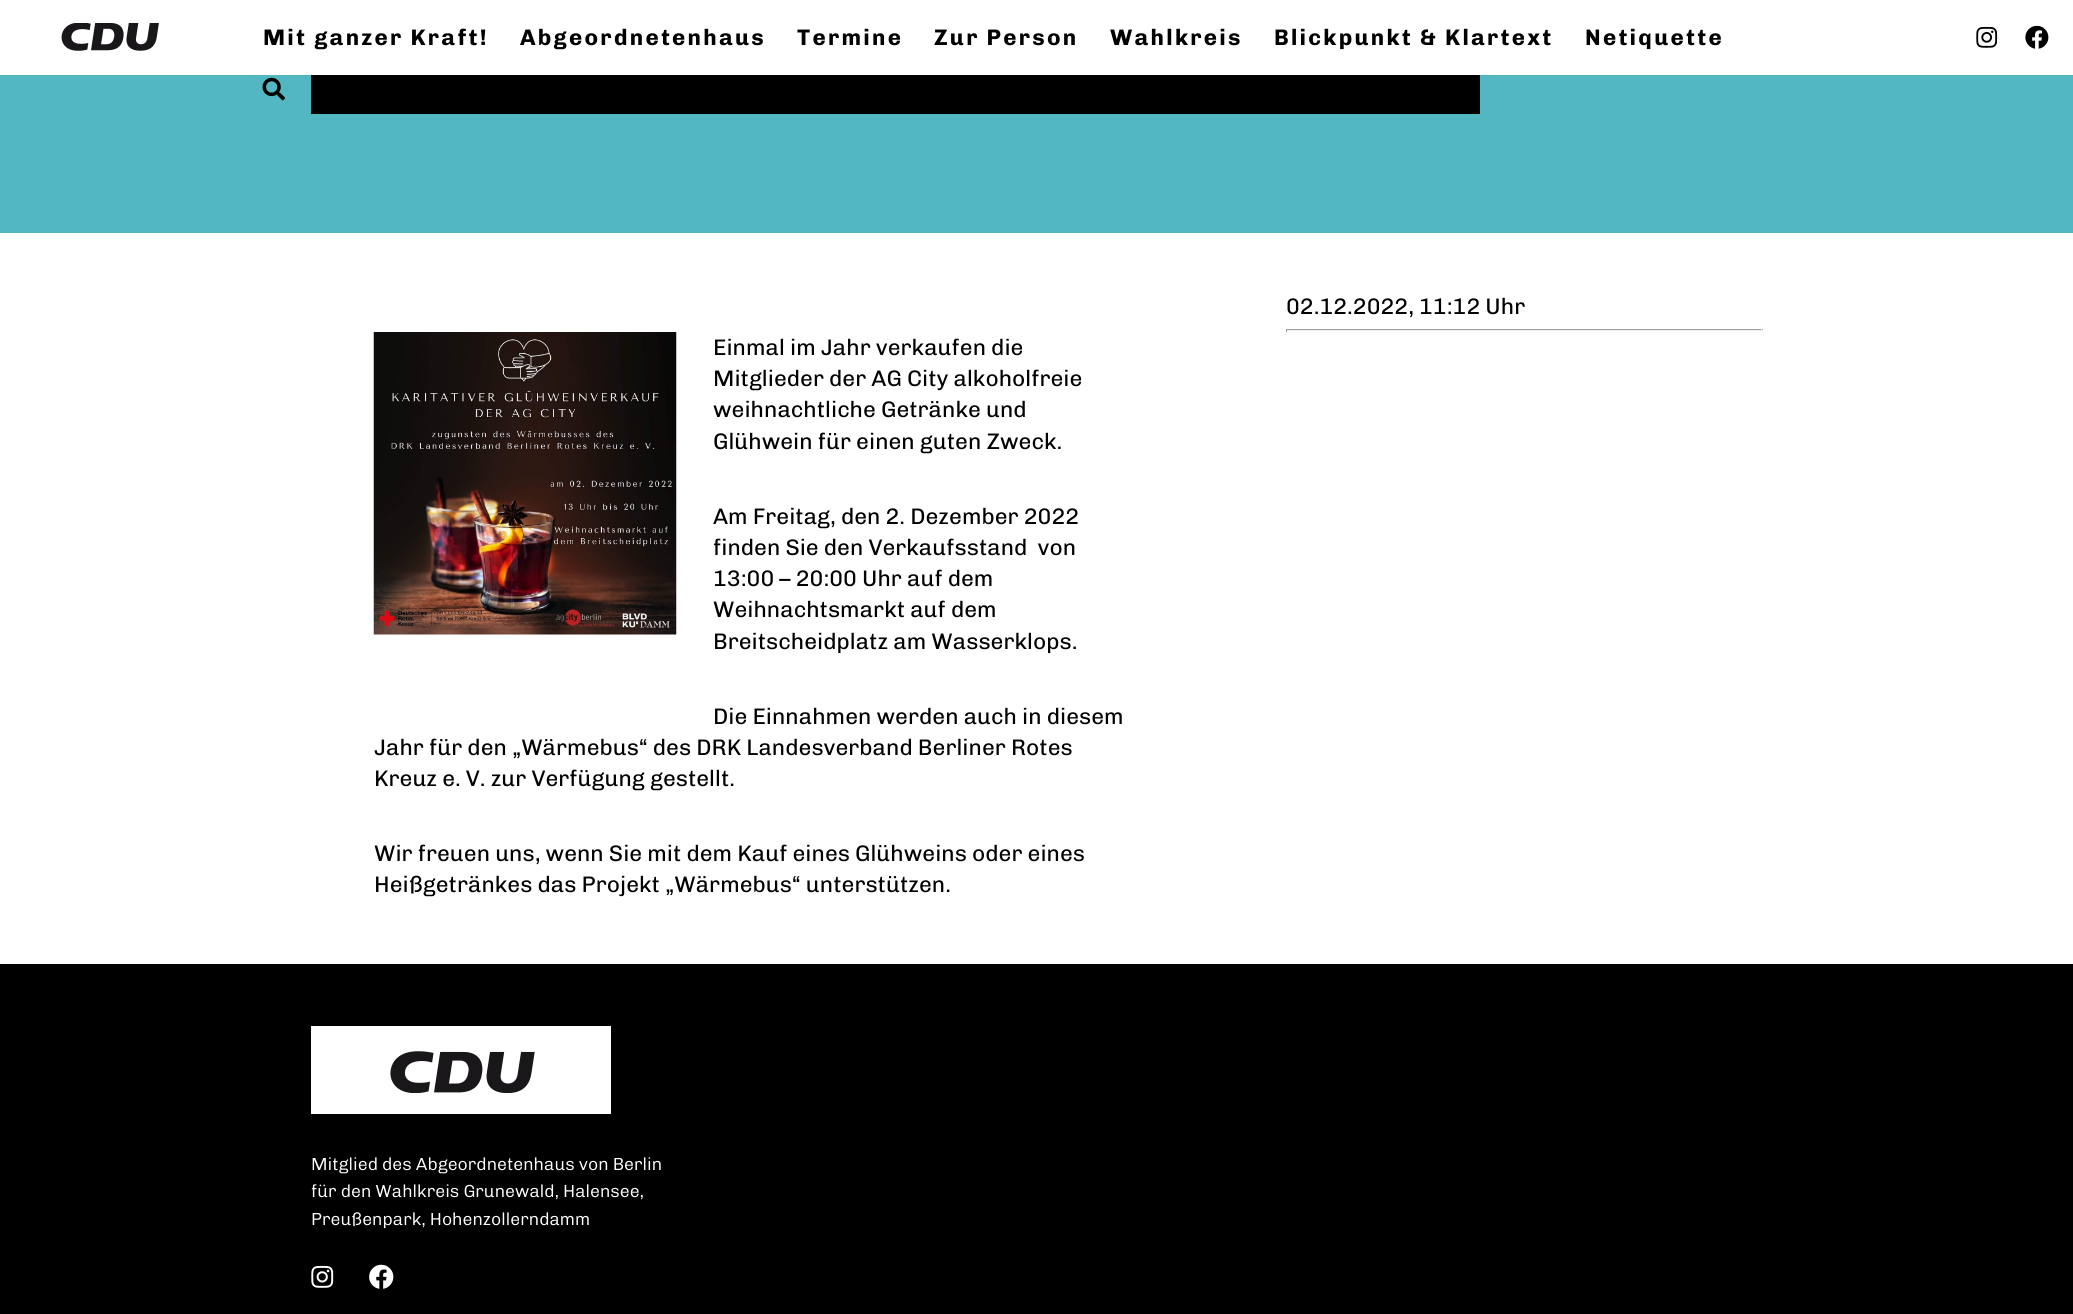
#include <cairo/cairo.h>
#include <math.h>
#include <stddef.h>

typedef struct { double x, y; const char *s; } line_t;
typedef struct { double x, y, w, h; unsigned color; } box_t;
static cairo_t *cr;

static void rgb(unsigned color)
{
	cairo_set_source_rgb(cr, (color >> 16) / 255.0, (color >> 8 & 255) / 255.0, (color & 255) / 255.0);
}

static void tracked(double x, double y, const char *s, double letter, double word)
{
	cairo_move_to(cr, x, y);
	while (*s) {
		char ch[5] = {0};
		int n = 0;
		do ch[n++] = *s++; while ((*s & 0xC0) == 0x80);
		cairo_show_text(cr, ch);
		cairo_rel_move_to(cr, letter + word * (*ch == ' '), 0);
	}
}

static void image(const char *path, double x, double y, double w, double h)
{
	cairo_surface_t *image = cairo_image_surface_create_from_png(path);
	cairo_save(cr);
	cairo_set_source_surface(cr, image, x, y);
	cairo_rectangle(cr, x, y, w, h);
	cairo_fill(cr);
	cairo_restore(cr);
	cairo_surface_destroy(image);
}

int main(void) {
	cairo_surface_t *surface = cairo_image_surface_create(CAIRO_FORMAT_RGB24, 2073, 1314);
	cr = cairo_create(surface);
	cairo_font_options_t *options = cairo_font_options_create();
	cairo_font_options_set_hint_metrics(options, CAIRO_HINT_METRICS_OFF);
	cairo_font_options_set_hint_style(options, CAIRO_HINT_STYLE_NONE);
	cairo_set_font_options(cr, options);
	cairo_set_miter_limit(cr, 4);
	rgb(0xffffff);
	cairo_paint(cr);
	image("img/1.png", 61, 23, 98, 28);
	rgb(0x52b7c1);
	cairo_rectangle(cr, 0, 75, 2073, 158);
	cairo_fill(cr);
	image("img/2.png", 262, 77, 23, 24);
	image("img/3.png", 1976, 26, 22, 22);
	image("img/4.png", 2025, 25, 24, 24);
	{
		static const box_t items[] = {
			{311, 75, 1169, 39, 0x000000},
			{1286, 329, 477, 1, 0x9f9f9f},
			{1761, 329, 1, 3, 0xeeeeee},
			{1286, 330, 477, 1, 0xeeeeee},
			{1286, 329, 1, 3, 0x9f9f9f},
		};
		for (size_t i = 0; i < sizeof items / sizeof *items; i++) {
			rgb(items[i].color);
			cairo_rectangle(cr, items[i].x, items[i].y, items[i].w, items[i].h);
			cairo_fill(cr);
		}
	}
	image("img/5.png", 373, 332, 304, 303);
	rgb(0x000000);
	cairo_rectangle(cr, 0, 964, 2073, 350);
	cairo_fill(cr);
	rgb(0xffffff);
	cairo_rectangle(cr, 311, 1026, 300, 88);
	cairo_fill(cr);
	image("img/6.png", 390, 1051, 145, 42);
	image("img/7.png", 311, 1265, 23, 23);
	image("img/8.png", 369, 1264, 25, 25);
	cairo_select_font_face(cr, "Chivo", CAIRO_FONT_SLANT_NORMAL, CAIRO_FONT_WEIGHT_BOLD);
	cairo_set_font_size(cr, 22.5);
	rgb(0x000000);
	{
		static const line_t items[] = {
			{263, 45, "Mit ganzer Kraft!"},
			{520, 45, "Abgeordnetenhaus"},
			{797, 45, "Termine"},
			{934, 45, "Zur Person"},
			{1110, 45, "Wahlkreis"},
			{1274, 45, "Blickpunkt & Klartext"},
			{1585, 45, "Netiquette"},
		};
		for (size_t i = 0; i < sizeof items / sizeof *items; i++) {
			tracked(items[i].x, items[i].y, items[i].s, 2.25, 0);
		}
	}
	cairo_select_font_face(cr, "Chivo", CAIRO_FONT_SLANT_NORMAL, CAIRO_FONT_WEIGHT_NORMAL);
	{
		static const line_t items[] = {
			{1286, 314, "02.12.2022, 11:12 Uhr"},
			{713, 355, "Einmal im Jahr verkaufen die"},
			{713, 386, "Mitglieder der AG City alkoholfreie"},
			{713, 417, "weihnachtliche Getränke und"},
			{713, 449, "Glühwein für einen guten Zweck."},
			{713, 524, "Am Freitag, den 2. Dezember 2022"},
			{713, 555, "finden Sie den Verkaufsstand  von"},
			{713, 586, "13:00 – 20:00 Uhr auf dem"},
			{713, 617, "Weihnachtsmarkt auf dem"},
			{713, 649, "Breitscheidplatz am Wasserklops."},
			{713, 724, "Die Einnahmen werden auch in diesem"},
			{374, 755, "Jahr für den „Wärmebus“ des DRK Landesverband Berliner Rotes"},
			{374, 786, "Kreuz e. V. zur Verfügung gestellt."},
			{374, 861, "Wir freuen uns, wenn Sie mit dem Kauf eines Glühweins oder eines"},
			{374, 892, "Heißgetränkes das Projekt „Wärmebus“ unterstützen."},
		};
		for (size_t i = 0; i < sizeof items / sizeof *items; i++) {
			cairo_move_to(cr, items[i].x, items[i].y);
			cairo_show_text(cr, items[i].s);
		}
	}
	cairo_select_font_face(cr, "Chivo Light", CAIRO_FONT_SLANT_NORMAL, CAIRO_FONT_WEIGHT_NORMAL);
	cairo_set_font_size(cr, 17.5);
	rgb(0xffffff);
	{
		static const line_t items[] = {
			{311, 1170, "Mitglied des Abgeordnetenhaus von Berlin"},
			{311, 1197, "für den Wahlkreis Grunewald, Halensee,"},
			{311, 1225, "Preußenpark, Hohenzollerndamm"},
		};
		for (size_t i = 0; i < sizeof items / sizeof *items; i++) {
			cairo_move_to(cr, items[i].x, items[i].y);
			cairo_show_text(cr, items[i].s);
		}
	}
	cairo_surface_write_to_png(surface, "page.png");
	cairo_font_options_destroy(options);
	cairo_destroy(cr);
	cairo_surface_destroy(surface);
	return 0;
}
